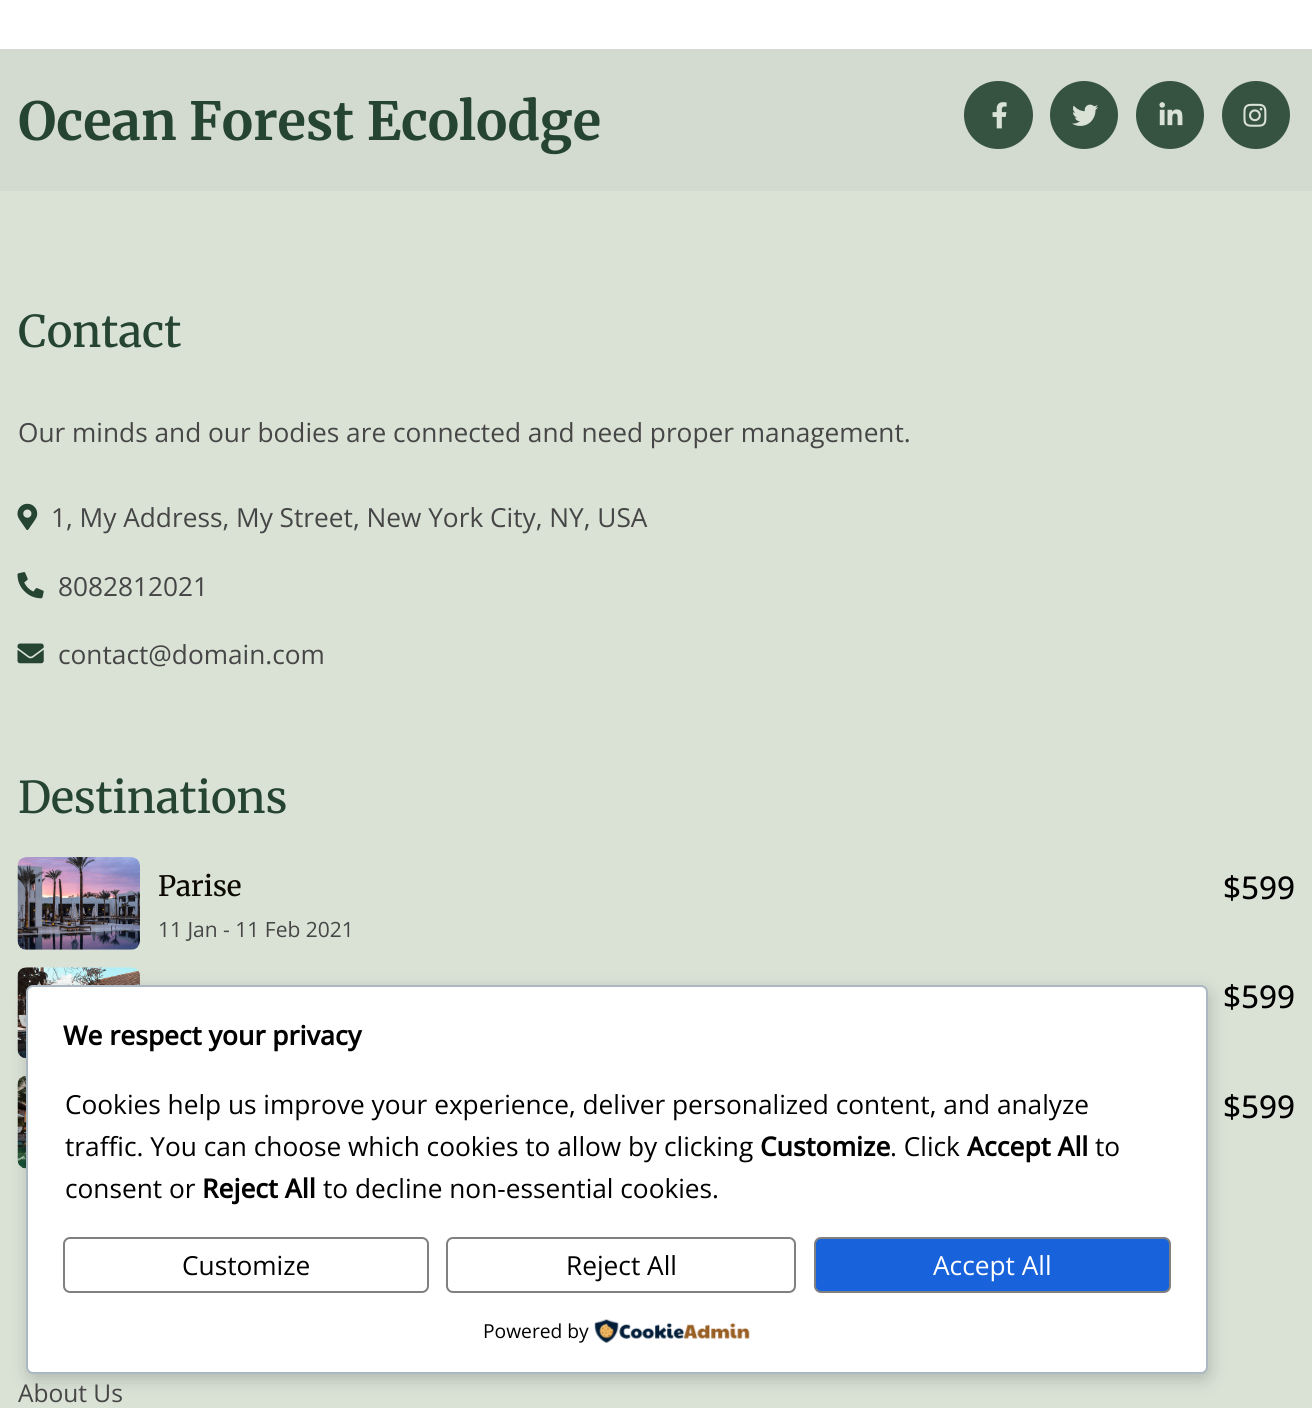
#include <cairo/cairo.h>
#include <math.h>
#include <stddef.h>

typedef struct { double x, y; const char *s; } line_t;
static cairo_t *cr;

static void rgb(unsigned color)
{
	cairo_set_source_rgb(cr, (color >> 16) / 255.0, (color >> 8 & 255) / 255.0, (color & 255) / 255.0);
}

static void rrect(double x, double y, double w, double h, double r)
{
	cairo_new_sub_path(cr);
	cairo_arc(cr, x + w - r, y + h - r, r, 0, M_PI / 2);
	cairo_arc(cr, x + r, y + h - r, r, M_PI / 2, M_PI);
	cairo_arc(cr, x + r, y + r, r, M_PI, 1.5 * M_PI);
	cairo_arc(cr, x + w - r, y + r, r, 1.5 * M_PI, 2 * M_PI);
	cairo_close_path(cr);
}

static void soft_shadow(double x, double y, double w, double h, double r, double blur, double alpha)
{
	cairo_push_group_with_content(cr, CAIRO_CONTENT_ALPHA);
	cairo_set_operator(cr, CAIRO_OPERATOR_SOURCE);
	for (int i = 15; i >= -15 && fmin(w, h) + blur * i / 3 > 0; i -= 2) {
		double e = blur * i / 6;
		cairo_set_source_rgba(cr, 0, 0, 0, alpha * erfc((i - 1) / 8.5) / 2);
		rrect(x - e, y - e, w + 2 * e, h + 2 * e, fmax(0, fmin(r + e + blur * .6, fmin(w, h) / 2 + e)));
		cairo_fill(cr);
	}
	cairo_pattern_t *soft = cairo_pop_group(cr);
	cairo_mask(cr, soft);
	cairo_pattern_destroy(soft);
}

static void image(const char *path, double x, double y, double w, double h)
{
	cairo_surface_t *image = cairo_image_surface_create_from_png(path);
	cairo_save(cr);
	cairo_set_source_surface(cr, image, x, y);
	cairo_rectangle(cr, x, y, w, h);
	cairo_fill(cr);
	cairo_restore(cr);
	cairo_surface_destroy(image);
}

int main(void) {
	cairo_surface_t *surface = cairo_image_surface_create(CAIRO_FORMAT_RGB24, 1312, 1408);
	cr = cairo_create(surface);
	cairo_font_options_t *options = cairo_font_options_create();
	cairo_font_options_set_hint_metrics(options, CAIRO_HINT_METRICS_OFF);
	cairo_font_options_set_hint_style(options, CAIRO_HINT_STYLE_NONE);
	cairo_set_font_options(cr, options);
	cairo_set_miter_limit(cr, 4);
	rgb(0xffffff);
	cairo_paint(cr);
	rgb(0xd3dacf);
	cairo_rectangle(cr, 0, 49, 1312, 142);
	cairo_fill(cr);
	rgb(0x365240);
	rrect(964, 81, 69, 68, 34);
	cairo_fill(cr);
	image("img/1.png", 992, 102, 15, 27);
	cairo_arc(cr, 1084, 115, 34, 0, 2 * M_PI);
	cairo_fill(cr);
	image("img/2.png", 1072, 104, 26, 22);
	cairo_arc(cr, 1170, 115, 34, 0, 2 * M_PI);
	cairo_fill(cr);
	image("img/3.png", 1159, 102, 24, 24);
	cairo_arc(cr, 1256, 115, 34, 0, 2 * M_PI);
	cairo_fill(cr);
	image("img/4.png", 1243, 103, 24, 24);
	rgb(0xdae2d6);
	cairo_rectangle(cr, 0, 191, 1312, 1217);
	cairo_fill(cr);
	image("img/5.png", 17, 503, 21, 27);
	image("img/6.png", 17, 572, 27, 27);
	image("img/7.png", 17, 643, 27, 21);
	image("img/8.png", 17, 857, 123, 93);
	image("img/9.png", 17, 967, 123, 92);
	image("img/10.png", 17, 1076, 9, 93);
	rgb(0x000000);
	soft_shadow(28, 991, 1181, 388, 7, 9, 0.2);
	rgb(0xffffff);
	rrect(27, 986, 1180, 387, 6);
	cairo_fill_preserve(cr);
	rgb(0xabb8c3);
	cairo_stroke(cr);
	rrect(64, 1238, 364, 54, 6);
	rgb(0x808080);
	cairo_stroke(cr);
	rrect(447, 1238, 348, 54, 6);
	cairo_stroke(cr);
	rgb(0x1863dc);
	rrect(815, 1238, 355, 54, 6);
	cairo_fill_preserve(cr);
	rgb(0x808080);
	cairo_stroke(cr);
	image("img/11.png", 594, 1319, 156, 24);
	cairo_select_font_face(cr, "Merriweather", CAIRO_FONT_SLANT_NORMAL, CAIRO_FONT_WEIGHT_BOLD);
	cairo_set_font_size(cr, 52.5);
	rgb(0x264432);
	cairo_move_to(cr, 18, 140);
	cairo_show_text(cr, "Ocean Forest Ecolodge");
	cairo_select_font_face(cr, "Merriweather Medium", CAIRO_FONT_SLANT_NORMAL, CAIRO_FONT_WEIGHT_NORMAL);
	cairo_set_font_size(cr, 43.75);
	cairo_move_to(cr, 18, 347);
	cairo_show_text(cr, "Contact");
	cairo_select_font_face(cr, "Open Sans", CAIRO_FONT_SLANT_NORMAL, CAIRO_FONT_WEIGHT_NORMAL);
	cairo_set_font_size(cr, 26.25);
	rgb(0x464646);
	{
		static const line_t items[] = {
			{18, 442, "Our minds and our bodies are connected and need proper management."},
			{51, 527, "1, My Address, My Street, New York City, NY, USA"},
			{58, 596, "8082812021"},
			{58, 664, "contact@domain.com"},
		};
		for (size_t i = 0; i < sizeof items / sizeof *items; i++) {
			cairo_move_to(cr, items[i].x, items[i].y);
			cairo_show_text(cr, items[i].s);
		}
	}
	cairo_select_font_face(cr, "Merriweather Medium", CAIRO_FONT_SLANT_NORMAL, CAIRO_FONT_WEIGHT_NORMAL);
	cairo_set_font_size(cr, 43.75);
	rgb(0x264432);
	cairo_move_to(cr, 18, 813);
	cairo_show_text(cr, "Destinations");
	cairo_set_font_size(cr, 28);
	rgb(0x0c0901);
	cairo_move_to(cr, 158, 896);
	cairo_show_text(cr, "Parise");
	cairo_select_font_face(cr, "Open Sans Medium", CAIRO_FONT_SLANT_NORMAL, CAIRO_FONT_WEIGHT_NORMAL);
	cairo_set_font_size(cr, 31.5);
	rgb(0x000000);
	cairo_move_to(cr, 1223, 899);
	cairo_show_text(cr, "$599");
	cairo_select_font_face(cr, "Open Sans", CAIRO_FONT_SLANT_NORMAL, CAIRO_FONT_WEIGHT_NORMAL);
	cairo_set_font_size(cr, 21);
	rgb(0x464646);
	cairo_move_to(cr, 158, 937);
	cairo_show_text(cr, "11 Jan - 11 Feb 2021");
	cairo_select_font_face(cr, "Open Sans Medium", CAIRO_FONT_SLANT_NORMAL, CAIRO_FONT_WEIGHT_NORMAL);
	cairo_set_font_size(cr, 31.5);
	rgb(0x000000);
	cairo_move_to(cr, 1223, 1008);
	cairo_show_text(cr, "$599");
	cairo_move_to(cr, 1223, 1118);
	cairo_show_text(cr, "$599");
	cairo_select_font_face(cr, "Open Sans", CAIRO_FONT_SLANT_NORMAL, CAIRO_FONT_WEIGHT_NORMAL);
	cairo_set_font_size(cr, 24.5);
	rgb(0x464646);
	cairo_move_to(cr, 18, 1402);
	cairo_show_text(cr, "About Us");
	cairo_select_font_face(cr, "Open Sans", CAIRO_FONT_SLANT_NORMAL, CAIRO_FONT_WEIGHT_BOLD);
	cairo_set_font_size(cr, 26.25);
	rgb(0x000000);
	cairo_move_to(cr, 63, 1045);
	cairo_show_text(cr, "We respect your privacy");
	cairo_select_font_face(cr, "Open Sans", CAIRO_FONT_SLANT_NORMAL, CAIRO_FONT_WEIGHT_NORMAL);
	cairo_move_to(cr, 65, 1114);
	cairo_show_text(cr, "Cookies help us improve your experience, deliver personalized content, and analyze");
	cairo_move_to(cr, 65, 1156);
	cairo_show_text(cr, "traffic. You can choose which cookies to allow by clicking");
	cairo_select_font_face(cr, "Open Sans", CAIRO_FONT_SLANT_NORMAL, CAIRO_FONT_WEIGHT_BOLD);
	cairo_move_to(cr, 760, 1156);
	cairo_show_text(cr, "Customize");
	cairo_select_font_face(cr, "Open Sans", CAIRO_FONT_SLANT_NORMAL, CAIRO_FONT_WEIGHT_NORMAL);
	cairo_move_to(cr, 890, 1156);
	cairo_show_text(cr, ". Click");
	cairo_select_font_face(cr, "Open Sans", CAIRO_FONT_SLANT_NORMAL, CAIRO_FONT_WEIGHT_BOLD);
	cairo_move_to(cr, 967, 1156);
	cairo_show_text(cr, "Accept All");
	cairo_select_font_face(cr, "Open Sans", CAIRO_FONT_SLANT_NORMAL, CAIRO_FONT_WEIGHT_NORMAL);
	cairo_move_to(cr, 1095, 1156);
	cairo_show_text(cr, "to");
	cairo_move_to(cr, 65, 1198);
	cairo_show_text(cr, "consent or");
	cairo_select_font_face(cr, "Open Sans", CAIRO_FONT_SLANT_NORMAL, CAIRO_FONT_WEIGHT_BOLD);
	cairo_move_to(cr, 202, 1198);
	cairo_show_text(cr, "Reject All");
	cairo_select_font_face(cr, "Open Sans", CAIRO_FONT_SLANT_NORMAL, CAIRO_FONT_WEIGHT_NORMAL);
	{
		static const line_t items[] = {
			{323, 1198, "to decline non-essential cookies."},
			{182, 1275, "Customize"},
			{566, 1275, "Reject All"},
		};
		for (size_t i = 0; i < sizeof items / sizeof *items; i++) {
			cairo_move_to(cr, items[i].x, items[i].y);
			cairo_show_text(cr, items[i].s);
		}
	}
	rgb(0xffffff);
	cairo_move_to(cr, 933, 1275);
	cairo_show_text(cr, "Accept All");
	cairo_set_font_size(cr, 19.25);
	rgb(0x000000);
	cairo_move_to(cr, 483, 1338);
	cairo_show_text(cr, "Powered by");
	cairo_surface_write_to_png(surface, "page.png");
	cairo_font_options_destroy(options);
	cairo_destroy(cr);
	cairo_surface_destroy(surface);
	return 0;
}
